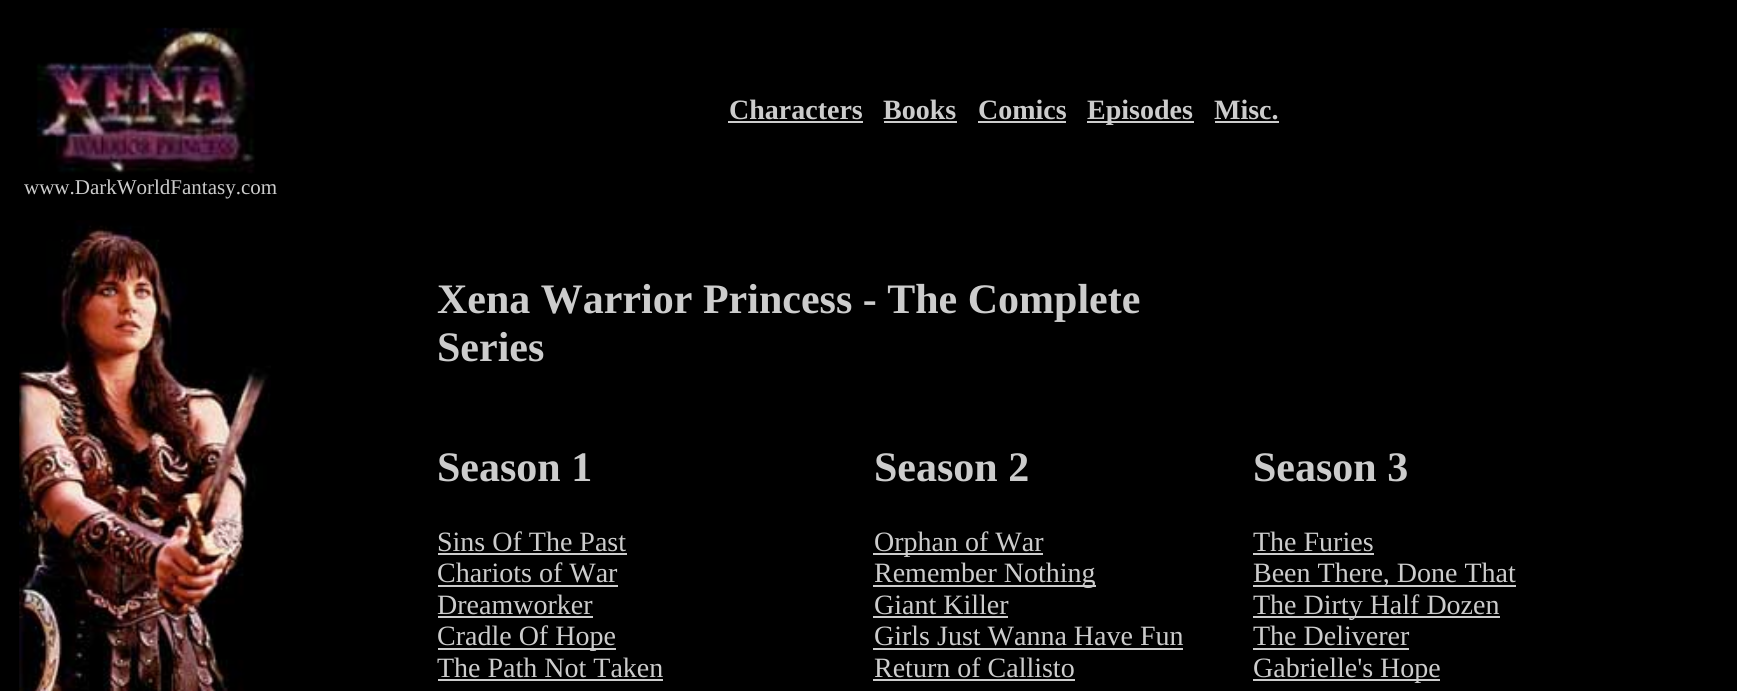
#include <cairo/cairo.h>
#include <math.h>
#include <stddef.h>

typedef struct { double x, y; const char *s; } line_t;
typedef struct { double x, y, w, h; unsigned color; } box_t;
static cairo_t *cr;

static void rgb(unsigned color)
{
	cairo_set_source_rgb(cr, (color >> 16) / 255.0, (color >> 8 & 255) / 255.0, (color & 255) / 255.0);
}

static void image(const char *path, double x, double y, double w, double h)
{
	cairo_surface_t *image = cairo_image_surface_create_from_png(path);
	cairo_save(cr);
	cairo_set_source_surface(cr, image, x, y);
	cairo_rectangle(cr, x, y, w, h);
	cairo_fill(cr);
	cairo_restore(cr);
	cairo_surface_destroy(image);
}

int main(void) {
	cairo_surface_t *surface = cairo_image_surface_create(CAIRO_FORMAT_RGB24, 1737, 691);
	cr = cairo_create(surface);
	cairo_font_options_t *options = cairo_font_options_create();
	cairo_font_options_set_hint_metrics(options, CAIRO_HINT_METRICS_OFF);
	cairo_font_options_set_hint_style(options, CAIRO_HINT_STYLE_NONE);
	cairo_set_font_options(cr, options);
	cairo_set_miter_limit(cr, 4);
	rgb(0x000000);
	cairo_paint(cr);
	{
		static const box_t items[] = {
			{728, 121, 135, 2, 0xcccccc},
			{884, 121, 73, 2, 0xcccccc},
			{978, 121, 88, 2, 0xcccccc},
			{1087, 121, 107, 2, 0xcccccc},
			{1215, 121, 64, 2, 0xcccccc},
		};
		for (size_t i = 0; i < sizeof items / sizeof *items; i++) {
			rgb(items[i].color);
			cairo_rectangle(cr, items[i].x, items[i].y, items[i].w, items[i].h);
			cairo_fill(cr);
		}
	}
	image("img/1.png", 36, 27, 219, 147);
	image("img/2.png", 19, 220, 252, 471);
	{
		static const box_t items[] = {
			{438, 553, 189, 2, 0xcccccc},
			{438, 585, 180, 2, 0xcccccc},
			{438, 616, 155, 2, 0xcccccc},
			{438, 648, 178, 2, 0xcccccc},
			{438, 679, 225, 2, 0xcccccc},
			{873, 553, 170, 2, 0xcccccc},
			{873, 585, 223, 2, 0xcccccc},
			{873, 616, 135, 2, 0xcccccc},
			{873, 648, 310, 2, 0xcccccc},
			{873, 679, 202, 2, 0xcccccc},
			{1253, 553, 121, 2, 0xcccccc},
			{1253, 585, 263, 2, 0xcccccc},
			{1253, 616, 247, 2, 0xcccccc},
			{1253, 648, 156, 2, 0xcccccc},
			{1253, 679, 187, 2, 0xcccccc},
		};
		for (size_t i = 0; i < sizeof items / sizeof *items; i++) {
			rgb(items[i].color);
			cairo_rectangle(cr, items[i].x, items[i].y, items[i].w, items[i].h);
			cairo_fill(cr);
		}
	}
	cairo_select_font_face(cr, "Liberation Serif", CAIRO_FONT_SLANT_NORMAL, CAIRO_FONT_WEIGHT_BOLD);
	cairo_set_font_size(cr, 28);
	{
		static const line_t items[] = {
			{729, 119, "Characters"},
			{883, 119, "Books"},
			{978, 119, "Comics"},
			{1087, 119, "Episodes"},
			{1214, 119, "Misc."},
		};
		for (size_t i = 0; i < sizeof items / sizeof *items; i++) {
			cairo_move_to(cr, items[i].x, items[i].y);
			cairo_show_text(cr, items[i].s);
		}
	}
	cairo_select_font_face(cr, "Liberation Serif", CAIRO_FONT_SLANT_NORMAL, CAIRO_FONT_WEIGHT_NORMAL);
	cairo_set_font_size(cr, 21);
	cairo_move_to(cr, 24, 194);
	cairo_show_text(cr, "www.DarkWorldFantasy.com");
	cairo_select_font_face(cr, "Liberation Serif", CAIRO_FONT_SLANT_NORMAL, CAIRO_FONT_WEIGHT_BOLD);
	cairo_set_font_size(cr, 42);
	{
		static const line_t items[] = {
			{437, 313, "Xena Warrior Princess - The Complete"},
			{437, 361, "Series"},
			{437, 481, "Season 1"},
		};
		for (size_t i = 0; i < sizeof items / sizeof *items; i++) {
			cairo_move_to(cr, items[i].x, items[i].y);
			cairo_show_text(cr, items[i].s);
		}
	}
	cairo_select_font_face(cr, "Liberation Serif", CAIRO_FONT_SLANT_NORMAL, CAIRO_FONT_WEIGHT_NORMAL);
	cairo_set_font_size(cr, 28);
	{
		static const line_t items[] = {
			{437, 551, "Sins Of The Past"},
			{437, 582, "Chariots of War"},
			{437, 614, "Dreamworker"},
			{437, 645, "Cradle Of Hope"},
			{437, 677, "The Path Not Taken"},
		};
		for (size_t i = 0; i < sizeof items / sizeof *items; i++) {
			cairo_move_to(cr, items[i].x, items[i].y);
			cairo_show_text(cr, items[i].s);
		}
	}
	cairo_select_font_face(cr, "Liberation Serif", CAIRO_FONT_SLANT_NORMAL, CAIRO_FONT_WEIGHT_BOLD);
	cairo_set_font_size(cr, 42);
	cairo_move_to(cr, 874, 481);
	cairo_show_text(cr, "Season 2");
	cairo_select_font_face(cr, "Liberation Serif", CAIRO_FONT_SLANT_NORMAL, CAIRO_FONT_WEIGHT_NORMAL);
	cairo_set_font_size(cr, 28);
	{
		static const line_t items[] = {
			{874, 551, "Orphan of War"},
			{874, 582, "Remember Nothing"},
			{874, 614, "Giant Killer"},
			{874, 645, "Girls Just Wanna Have Fun"},
			{874, 677, "Return of Callisto"},
		};
		for (size_t i = 0; i < sizeof items / sizeof *items; i++) {
			cairo_move_to(cr, items[i].x, items[i].y);
			cairo_show_text(cr, items[i].s);
		}
	}
	cairo_select_font_face(cr, "Liberation Serif", CAIRO_FONT_SLANT_NORMAL, CAIRO_FONT_WEIGHT_BOLD);
	cairo_set_font_size(cr, 42);
	cairo_move_to(cr, 1253, 481);
	cairo_show_text(cr, "Season 3");
	cairo_select_font_face(cr, "Liberation Serif", CAIRO_FONT_SLANT_NORMAL, CAIRO_FONT_WEIGHT_NORMAL);
	cairo_set_font_size(cr, 28);
	{
		static const line_t items[] = {
			{1253, 551, "The Furies"},
			{1253, 582, "Been There, Done That"},
			{1253, 614, "The Dirty Half Dozen"},
			{1253, 645, "The Deliverer"},
			{1253, 677, "Gabrielle's Hope"},
		};
		for (size_t i = 0; i < sizeof items / sizeof *items; i++) {
			cairo_move_to(cr, items[i].x, items[i].y);
			cairo_show_text(cr, items[i].s);
		}
	}
	cairo_surface_write_to_png(surface, "page.png");
	cairo_font_options_destroy(options);
	cairo_destroy(cr);
	cairo_surface_destroy(surface);
	return 0;
}
